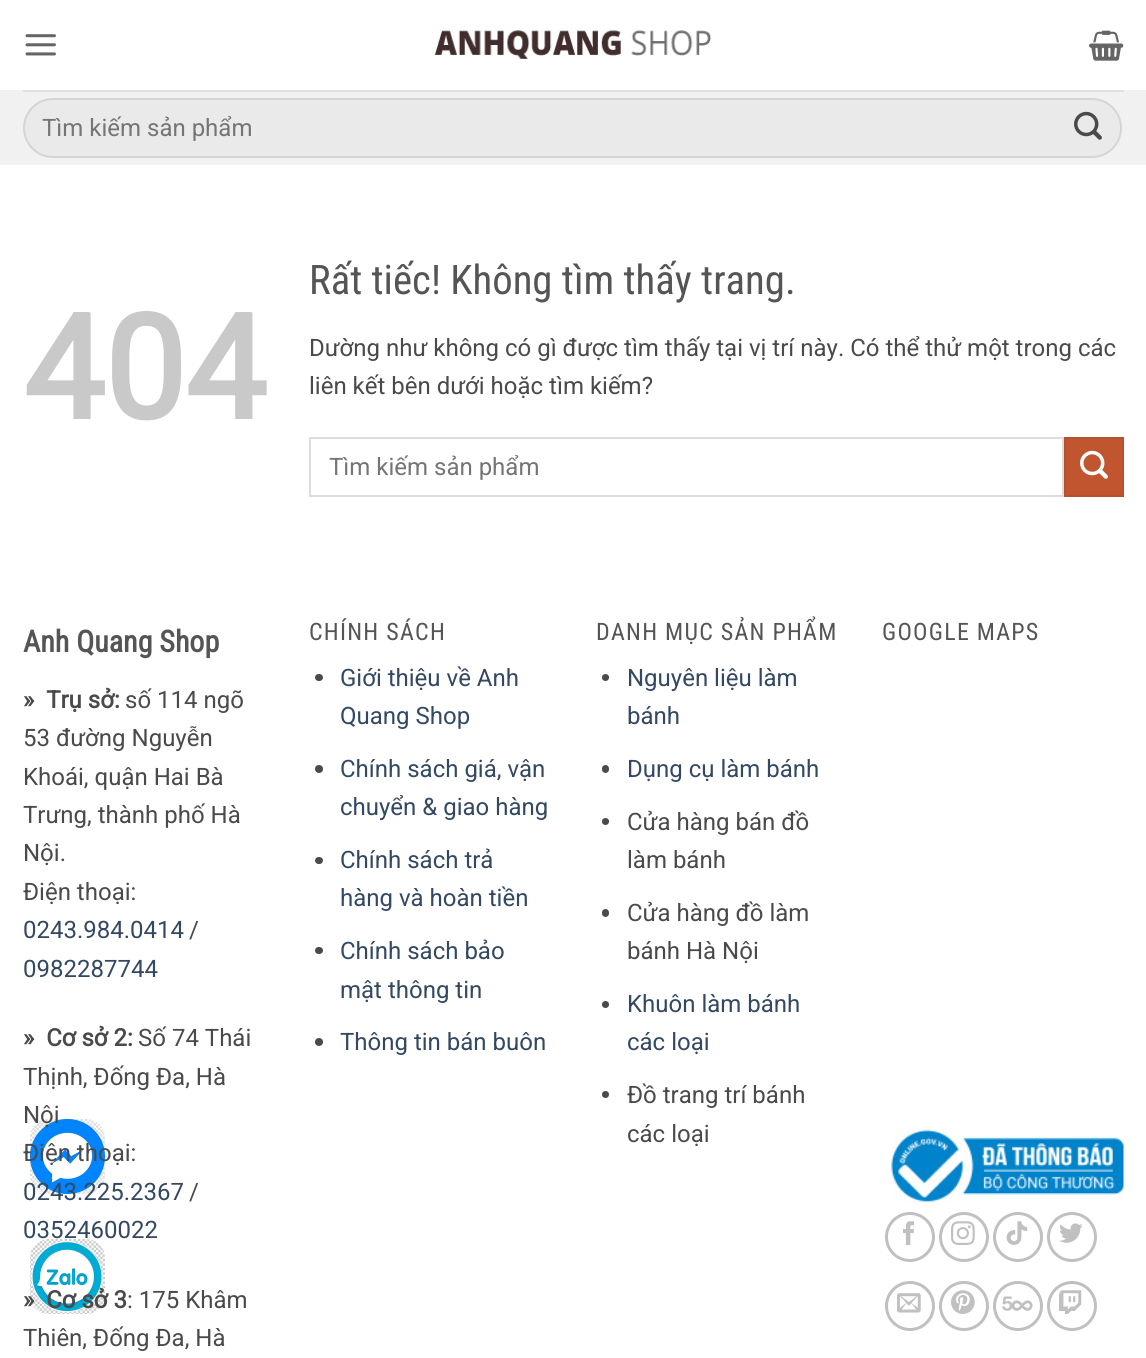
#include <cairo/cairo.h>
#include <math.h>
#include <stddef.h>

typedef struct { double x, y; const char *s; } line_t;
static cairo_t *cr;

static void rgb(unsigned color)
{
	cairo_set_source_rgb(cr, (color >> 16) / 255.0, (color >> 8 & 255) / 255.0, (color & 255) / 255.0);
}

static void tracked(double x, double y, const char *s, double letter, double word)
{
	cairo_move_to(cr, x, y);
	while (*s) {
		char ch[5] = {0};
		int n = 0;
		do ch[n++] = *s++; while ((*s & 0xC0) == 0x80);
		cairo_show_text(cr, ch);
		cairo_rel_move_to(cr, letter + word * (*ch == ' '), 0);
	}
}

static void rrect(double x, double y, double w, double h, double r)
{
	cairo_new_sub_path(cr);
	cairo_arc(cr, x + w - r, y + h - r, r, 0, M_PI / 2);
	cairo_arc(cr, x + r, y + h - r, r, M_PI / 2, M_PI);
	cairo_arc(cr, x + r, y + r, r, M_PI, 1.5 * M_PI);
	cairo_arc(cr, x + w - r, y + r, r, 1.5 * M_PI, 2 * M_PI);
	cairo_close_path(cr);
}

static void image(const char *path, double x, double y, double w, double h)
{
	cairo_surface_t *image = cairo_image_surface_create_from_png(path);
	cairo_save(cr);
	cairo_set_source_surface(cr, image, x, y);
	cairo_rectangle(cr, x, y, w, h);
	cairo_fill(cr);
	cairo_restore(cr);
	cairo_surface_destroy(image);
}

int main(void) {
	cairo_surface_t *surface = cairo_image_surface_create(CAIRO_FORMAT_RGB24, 1146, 1358);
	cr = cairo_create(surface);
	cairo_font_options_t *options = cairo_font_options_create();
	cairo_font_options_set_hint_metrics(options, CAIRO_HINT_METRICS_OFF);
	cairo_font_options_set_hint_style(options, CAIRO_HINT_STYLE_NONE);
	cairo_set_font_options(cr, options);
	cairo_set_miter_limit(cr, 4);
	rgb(0xffffff);
	cairo_paint(cr);
	image("img/1.png", 25, 34, 31, 22);
	image("img/2.png", 434, 30, 278, 29);
	image("img/3.png", 1089, 30, 35, 31);
	rgb(0xf1f1f1);
	cairo_rectangle(cr, 0, 90, 1146, 75);
	cairo_fill(cr);
	rgb(0xe0e0e0);
	cairo_rectangle(cr, 23, 90, 1101, 2);
	cairo_fill(cr);
	rgb(0xeaeaea);
	rrect(23, 98, 1099, 60, 30);
	cairo_fill(cr);
	rrect(24, 99, 1097, 58, 29);
	cairo_set_source_rgba(cr, 0, 0, 0, 0.09);
	cairo_stroke(cr);
	image("img/4.png", 1074, 111, 28, 29);
	cairo_rectangle(cr, 310, 438, 753, 58);
	rgb(0xdddddd);
	cairo_stroke(cr);
	rgb(0xc05530);
	cairo_rectangle(cr, 1065, 438, 58, 58);
	cairo_fill_preserve(cr);
	rgb(0xb6512e);
	cairo_stroke(cr);
	image("img/5.png", 1080, 450, 28, 29);
	rgb(0x4a4a4a);
	rrect(315, 674, 8, 7, 3.5);
	cairo_fill(cr);
	cairo_arc(cr, 319, 769, 4, 0, 2 * M_PI);
	cairo_fill(cr);
	rrect(315, 857, 8, 7, 3.5);
	cairo_fill(cr);
	rrect(315, 947, 8, 7, 3.5);
	cairo_fill(cr);
	cairo_arc(cr, 319, 1042, 4, 0, 2 * M_PI);
	cairo_fill(cr);
	cairo_arc(cr, 605.5, 677.5, 3.5, 0, 2 * M_PI);
	cairo_fill(cr);
	rrect(602, 765, 7, 8, 3.5);
	cairo_fill(cr);
	cairo_arc(cr, 605.5, 821.5, 3.5, 0, 2 * M_PI);
	cairo_fill(cr);
	rrect(602, 909, 7, 8, 3.5);
	cairo_fill(cr);
	cairo_arc(cr, 605.5, 1004.5, 3.5, 0, 2 * M_PI);
	cairo_fill(cr);
	cairo_arc(cr, 605.5, 1094.5, 3.5, 0, 2 * M_PI);
	cairo_fill(cr);
	image("img/6.png", 891, 1129, 233, 73);
	cairo_arc(cr, 910, 1237, 23.5, 0, 2 * M_PI);
	rgb(0xc0c0c0);
	cairo_set_line_width(cr, 3);
	cairo_stroke(cr);
	image("img/7.png", 903, 1221, 11, 24);
	cairo_arc(cr, 964, 1237, 23.5, 0, 2 * M_PI);
	cairo_stroke(cr);
	image("img/8.png", 951, 1221, 24, 24);
	cairo_arc(cr, 1018, 1237, 23.5, 0, 2 * M_PI);
	cairo_stroke(cr);
	image("img/9.png", 1006, 1221, 22, 24);
	cairo_arc(cr, 1072, 1237, 23.5, 0, 2 * M_PI);
	cairo_stroke(cr);
	image("img/10.png", 1059, 1223, 24, 20);
	cairo_arc(cr, 910, 1306, 23.5, 0, 2 * M_PI);
	cairo_stroke(cr);
	image("img/11.png", 897, 1293, 24, 20);
	cairo_arc(cr, 964, 1306, 23.5, 0, 2 * M_PI);
	cairo_stroke(cr);
	image("img/12.png", 951, 1290, 24, 24);
	cairo_arc(cr, 1018, 1306, 23.5, 0, 2 * M_PI);
	cairo_stroke(cr);
	image("img/13.png", 1002, 1296, 31, 15);
	cairo_arc(cr, 1072, 1306, 23.5, 0, 2 * M_PI);
	cairo_stroke(cr);
	image("img/14.png", 1059, 1290, 23, 24);
	image("img/15.png", 30, 1119, 75, 75);
	image("img/16.png", 30, 1239, 75, 75);
	cairo_select_font_face(cr, "Roboto", CAIRO_FONT_SLANT_NORMAL, CAIRO_FONT_WEIGHT_NORMAL);
	cairo_set_font_size(cr, 24);
	rgb(0x757575);
	cairo_move_to(cr, 42, 136);
	cairo_show_text(cr, "Tìm kiếm sản phẩm");
	cairo_select_font_face(cr, "Roboto", CAIRO_FONT_SLANT_NORMAL, CAIRO_FONT_WEIGHT_BOLD);
	cairo_set_font_size(cr, 144);
	rgb(0xc9c9c9);
	cairo_move_to(cr, 23, 419);
	cairo_show_text(cr, "404");
	cairo_select_font_face(cr, "Roboto Condensed", CAIRO_FONT_SLANT_NORMAL, CAIRO_FONT_WEIGHT_NORMAL);
	cairo_set_font_size(cr, 40.75);
	rgb(0x555555);
	cairo_move_to(cr, 309, 294);
	cairo_show_text(cr, "Rất tiếc! Không tìm thấy trang.");
	cairo_select_font_face(cr, "Roboto", CAIRO_FONT_SLANT_NORMAL, CAIRO_FONT_WEIGHT_NORMAL);
	cairo_set_font_size(cr, 24);
	rgb(0x4a4a4a);
	cairo_move_to(cr, 309, 356);
	cairo_show_text(cr, "Dường như không có gì được tìm thấy tại vị trí này. Có thể thử một trong các");
	cairo_move_to(cr, 309, 394);
	cairo_show_text(cr, "liên kết bên dưới hoặc tìm kiếm?");
	rgb(0x757575);
	cairo_move_to(cr, 329, 475);
	cairo_show_text(cr, "Tìm kiếm sản phẩm");
	cairo_select_font_face(cr, "Roboto Condensed", CAIRO_FONT_SLANT_NORMAL, CAIRO_FONT_WEIGHT_BOLD);
	cairo_set_font_size(cr, 30);
	rgb(0x555555);
	cairo_move_to(cr, 23, 652);
	cairo_show_text(cr, "Anh Quang Shop");
	cairo_select_font_face(cr, "Roboto", CAIRO_FONT_SLANT_NORMAL, CAIRO_FONT_WEIGHT_BOLD);
	cairo_set_font_size(cr, 24);
	rgb(0x4a4a4a);
	cairo_move_to(cr, 23, 708);
	cairo_show_text(cr, "»  Trụ sở:");
	cairo_select_font_face(cr, "Roboto", CAIRO_FONT_SLANT_NORMAL, CAIRO_FONT_WEIGHT_NORMAL);
	{
		static const line_t items[] = {
			{125, 708, "số 114 ngõ"},
			{23, 746, "53 đường Nguyễn"},
			{23, 785, "Khoái, quận Hai Bà"},
			{23, 823, "Trưng, thành phố Hà"},
			{23, 861, "Nội."},
			{23, 900, "Điện thoại:"},
		};
		for (size_t i = 0; i < sizeof items / sizeof *items; i++) {
			cairo_move_to(cr, items[i].x, items[i].y);
			cairo_show_text(cr, items[i].s);
		}
	}
	rgb(0x334862);
	cairo_move_to(cr, 23, 938);
	cairo_show_text(cr, "0243.984.0414");
	rgb(0x4a4a4a);
	cairo_move_to(cr, 189, 938);
	cairo_show_text(cr, "/");
	rgb(0x334862);
	cairo_move_to(cr, 23, 977);
	cairo_show_text(cr, "0982287744");
	cairo_select_font_face(cr, "Roboto", CAIRO_FONT_SLANT_NORMAL, CAIRO_FONT_WEIGHT_BOLD);
	rgb(0x4a4a4a);
	cairo_move_to(cr, 23, 1046);
	cairo_show_text(cr, "»  Cơ sở 2:");
	cairo_select_font_face(cr, "Roboto", CAIRO_FONT_SLANT_NORMAL, CAIRO_FONT_WEIGHT_NORMAL);
	{
		static const line_t items[] = {
			{138, 1046, "Số 74 Thái"},
			{23, 1085, "Thịnh, Đống Đa, Hà"},
			{23, 1123, "Nội"},
			{23, 1161, "Điện thoại:"},
		};
		for (size_t i = 0; i < sizeof items / sizeof *items; i++) {
			cairo_move_to(cr, items[i].x, items[i].y);
			cairo_show_text(cr, items[i].s);
		}
	}
	rgb(0x334862);
	cairo_move_to(cr, 23, 1200);
	cairo_show_text(cr, "0243.225.2367");
	rgb(0x4a4a4a);
	cairo_move_to(cr, 189, 1200);
	cairo_show_text(cr, "/");
	rgb(0x334862);
	cairo_move_to(cr, 23, 1238);
	cairo_show_text(cr, "0352460022");
	cairo_select_font_face(cr, "Roboto", CAIRO_FONT_SLANT_NORMAL, CAIRO_FONT_WEIGHT_BOLD);
	rgb(0x4a4a4a);
	cairo_move_to(cr, 23, 1308);
	cairo_show_text(cr, "»  Cơ sở 3");
	cairo_select_font_face(cr, "Roboto", CAIRO_FONT_SLANT_NORMAL, CAIRO_FONT_WEIGHT_NORMAL);
	cairo_move_to(cr, 127, 1308);
	cairo_show_text(cr, ": 175 Khâm");
	cairo_move_to(cr, 23, 1346);
	cairo_show_text(cr, "Thiên, Đống Đa, Hà");
	cairo_select_font_face(cr, "Roboto Condensed", CAIRO_FONT_SLANT_NORMAL, CAIRO_FONT_WEIGHT_NORMAL);
	rgb(0x555555);
	tracked(309, 640, "CHÍNH SÁCH", 1.25, 0);
	cairo_select_font_face(cr, "Roboto", CAIRO_FONT_SLANT_NORMAL, CAIRO_FONT_WEIGHT_NORMAL);
	rgb(0x334862);
	{
		static const line_t items[] = {
			{340, 686, "Giới thiệu về Anh"},
			{340, 724, "Quang Shop"},
			{340, 777, "Chính sách giá, vận"},
			{340, 815, "chuyển & giao hàng"},
			{340, 868, "Chính sách trả"},
			{340, 906, "hàng và hoàn tiền"},
			{340, 959, "Chính sách bảo"},
			{340, 998, "mật thông tin"},
			{340, 1050, "Thông tin bán buôn"},
		};
		for (size_t i = 0; i < sizeof items / sizeof *items; i++) {
			cairo_move_to(cr, items[i].x, items[i].y);
			cairo_show_text(cr, items[i].s);
		}
	}
	cairo_select_font_face(cr, "Roboto Condensed", CAIRO_FONT_SLANT_NORMAL, CAIRO_FONT_WEIGHT_NORMAL);
	rgb(0x555555);
	tracked(596, 640, "DANH MỤC SẢN PHẨM", 1.25, 0);
	cairo_select_font_face(cr, "Roboto", CAIRO_FONT_SLANT_NORMAL, CAIRO_FONT_WEIGHT_NORMAL);
	rgb(0x334862);
	{
		static const line_t items[] = {
			{627, 686, "Nguyên liệu làm"},
			{627, 724, "bánh"},
			{627, 777, "Dụng cụ làm bánh"},
		};
		for (size_t i = 0; i < sizeof items / sizeof *items; i++) {
			cairo_move_to(cr, items[i].x, items[i].y);
			cairo_show_text(cr, items[i].s);
		}
	}
	rgb(0x4a4a4a);
	{
		static const line_t items[] = {
			{627, 830, "Cửa hàng bán đồ"},
			{627, 868, "làm bánh"},
			{627, 921, "Cửa hàng đồ làm"},
			{627, 959, "bánh Hà Nội"},
		};
		for (size_t i = 0; i < sizeof items / sizeof *items; i++) {
			cairo_move_to(cr, items[i].x, items[i].y);
			cairo_show_text(cr, items[i].s);
		}
	}
	rgb(0x334862);
	cairo_move_to(cr, 627, 1012);
	cairo_show_text(cr, "Khuôn làm bánh");
	cairo_move_to(cr, 627, 1050);
	cairo_show_text(cr, "các loại");
	rgb(0x4a4a4a);
	cairo_move_to(cr, 627, 1103);
	cairo_show_text(cr, "Đồ trang trí bánh");
	cairo_move_to(cr, 627, 1142);
	cairo_show_text(cr, "các loại");
	cairo_select_font_face(cr, "Roboto Condensed", CAIRO_FONT_SLANT_NORMAL, CAIRO_FONT_WEIGHT_NORMAL);
	rgb(0x555555);
	tracked(882, 640, "GOOGLE MAPS", 1.25, 0);
	cairo_surface_write_to_png(surface, "page.png");
	cairo_font_options_destroy(options);
	cairo_destroy(cr);
	cairo_surface_destroy(surface);
	return 0;
}
